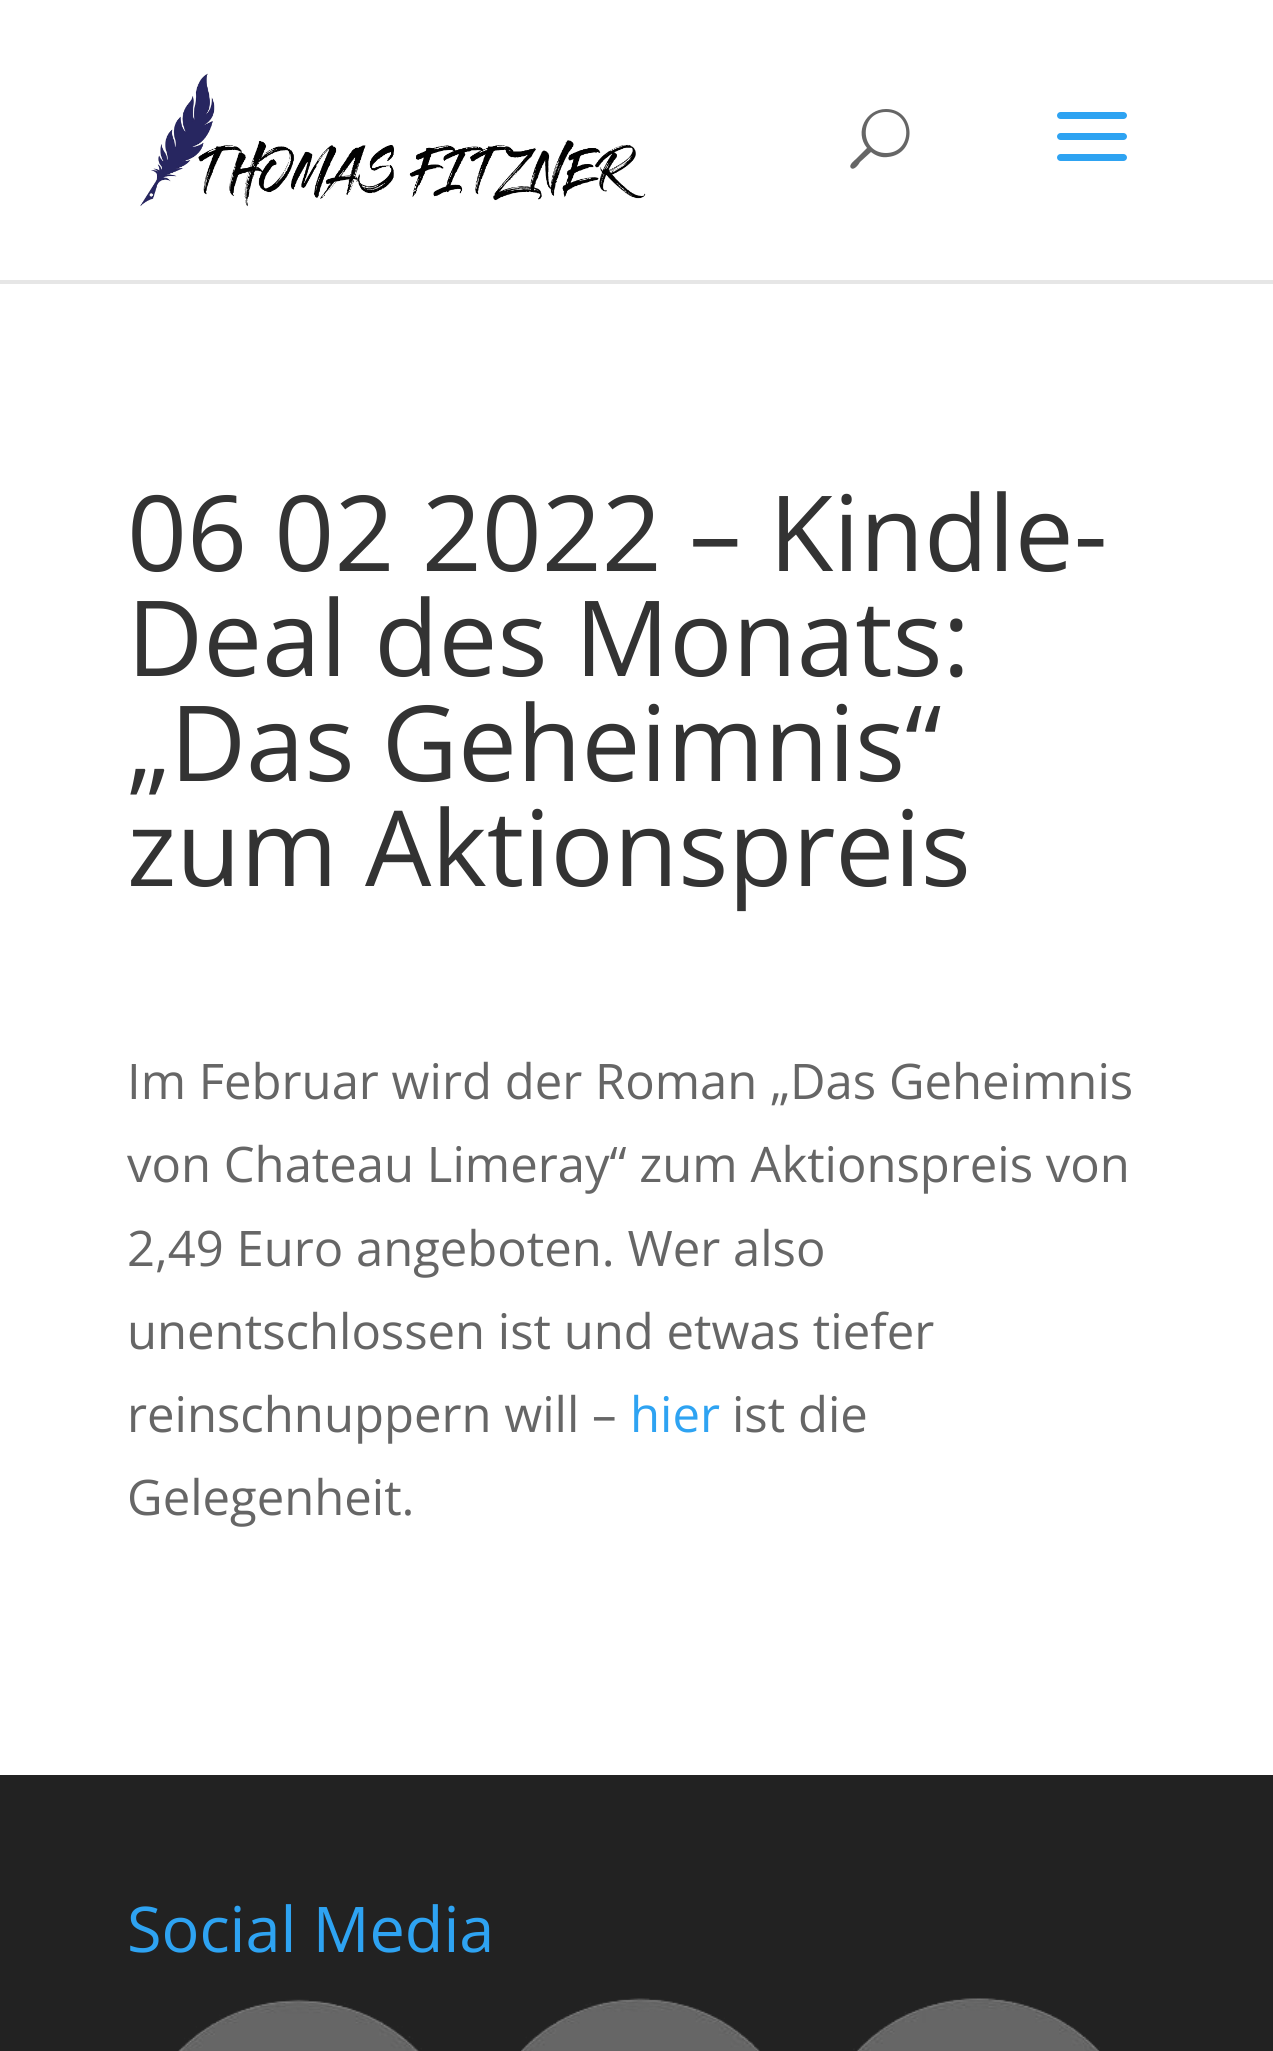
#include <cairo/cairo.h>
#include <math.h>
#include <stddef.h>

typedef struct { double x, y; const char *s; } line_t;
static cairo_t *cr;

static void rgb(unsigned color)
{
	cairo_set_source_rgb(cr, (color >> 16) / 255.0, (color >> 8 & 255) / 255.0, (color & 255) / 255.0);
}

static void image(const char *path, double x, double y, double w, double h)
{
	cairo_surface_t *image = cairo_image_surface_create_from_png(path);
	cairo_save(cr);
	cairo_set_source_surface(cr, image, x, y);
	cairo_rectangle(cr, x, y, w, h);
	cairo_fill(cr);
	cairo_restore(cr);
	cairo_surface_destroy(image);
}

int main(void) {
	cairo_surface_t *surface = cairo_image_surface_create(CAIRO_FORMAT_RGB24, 1273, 2051);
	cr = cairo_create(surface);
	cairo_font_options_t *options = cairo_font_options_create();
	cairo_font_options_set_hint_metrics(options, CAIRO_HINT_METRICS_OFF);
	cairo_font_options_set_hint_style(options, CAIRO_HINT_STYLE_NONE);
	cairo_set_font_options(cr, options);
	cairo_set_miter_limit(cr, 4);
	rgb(0xffffff);
	cairo_paint(cr);
	rgb(0xe6e6e6);
	cairo_rectangle(cr, 0, 280, 1273, 4);
	cairo_fill(cr);
	image("img/1.png", 140, 73, 506, 134);
	rgb(0x666666);
	cairo_new_path(cr);
	cairo_move_to(cr, 886, 109);
	cairo_curve_to(cr, 866, 109, 854, 132, 867, 148);
	cairo_line_to(cr, 856, 159);
	cairo_curve_to(cr, 855, 160, 848, 165, 851, 168);
	cairo_curve_to(cr, 854, 171, 859, 164, 860, 162);
	cairo_line_to(cr, 871, 152);
	cairo_curve_to(cr, 876, 156, 882, 158, 888, 157);
	cairo_curve_to(cr, 918, 154, 916, 109, 886, 109);
	cairo_close_path(cr);
	cairo_move_to(cr, 886, 153);
	cairo_curve_to(cr, 859, 153, 859, 112, 886, 112);
	cairo_curve_to(cr, 913, 112, 913, 153, 886, 153);
	cairo_close_path(cr);
	cairo_fill(cr);
	image("img/2.png", 1057, 112, 70, 49);
	rgb(0x222222);
	cairo_rectangle(cr, 0, 1775, 1273, 276);
	cairo_fill(cr);
	image("img/3.png", 178, 1999, 244, 52);
	image("img/4.png", 521, 1998, 239, 53);
	image("img/5.png", 853, 1998, 247, 53);
	cairo_select_font_face(cr, "Open Sans", CAIRO_FONT_SLANT_NORMAL, CAIRO_FONT_WEIGHT_NORMAL);
	cairo_set_font_size(cr, 105);
	rgb(0x333333);
	{
		static const line_t items[] = {
			{127, 571, "06 02 2022 – Kindle-"},
			{127, 676, "Deal des Monats:"},
			{127, 781, "„Das Geheimnis“"},
			{127, 886, "zum Aktionspreis"},
		};
		for (size_t i = 0; i < sizeof items / sizeof *items; i++) {
			cairo_move_to(cr, items[i].x, items[i].y);
			cairo_show_text(cr, items[i].s);
		}
	}
	cairo_set_font_size(cr, 49);
	rgb(0x666666);
	{
		static const line_t items[] = {
			{127, 1099, "Im Februar wird der Roman „Das Geheimnis"},
			{127, 1182, "von Chateau Limeray“ zum Aktionspreis von"},
			{127, 1266, "2,49 Euro angeboten. Wer also"},
			{127, 1349, "unentschlossen ist und etwas tiefer"},
			{127, 1432, "reinschnuppern will –"},
		};
		for (size_t i = 0; i < sizeof items / sizeof *items; i++) {
			cairo_move_to(cr, items[i].x, items[i].y);
			cairo_show_text(cr, items[i].s);
		}
	}
	rgb(0x2ea3f2);
	cairo_move_to(cr, 630, 1432);
	cairo_show_text(cr, "hier");
	rgb(0x666666);
	cairo_move_to(cr, 732, 1432);
	cairo_show_text(cr, "ist die");
	cairo_move_to(cr, 127, 1515);
	cairo_show_text(cr, "Gelegenheit.");
	cairo_set_font_size(cr, 63);
	rgb(0x2ea3f2);
	cairo_move_to(cr, 127, 1952);
	cairo_show_text(cr, "Social Media");
	cairo_surface_write_to_png(surface, "page.png");
	cairo_font_options_destroy(options);
	cairo_destroy(cr);
	cairo_surface_destroy(surface);
	return 0;
}
